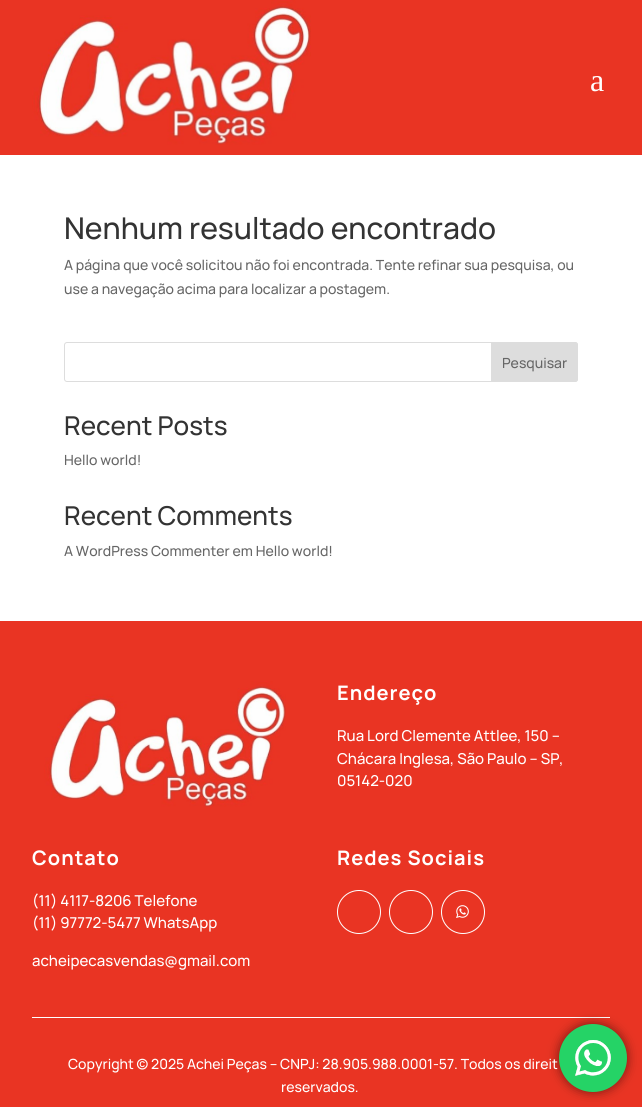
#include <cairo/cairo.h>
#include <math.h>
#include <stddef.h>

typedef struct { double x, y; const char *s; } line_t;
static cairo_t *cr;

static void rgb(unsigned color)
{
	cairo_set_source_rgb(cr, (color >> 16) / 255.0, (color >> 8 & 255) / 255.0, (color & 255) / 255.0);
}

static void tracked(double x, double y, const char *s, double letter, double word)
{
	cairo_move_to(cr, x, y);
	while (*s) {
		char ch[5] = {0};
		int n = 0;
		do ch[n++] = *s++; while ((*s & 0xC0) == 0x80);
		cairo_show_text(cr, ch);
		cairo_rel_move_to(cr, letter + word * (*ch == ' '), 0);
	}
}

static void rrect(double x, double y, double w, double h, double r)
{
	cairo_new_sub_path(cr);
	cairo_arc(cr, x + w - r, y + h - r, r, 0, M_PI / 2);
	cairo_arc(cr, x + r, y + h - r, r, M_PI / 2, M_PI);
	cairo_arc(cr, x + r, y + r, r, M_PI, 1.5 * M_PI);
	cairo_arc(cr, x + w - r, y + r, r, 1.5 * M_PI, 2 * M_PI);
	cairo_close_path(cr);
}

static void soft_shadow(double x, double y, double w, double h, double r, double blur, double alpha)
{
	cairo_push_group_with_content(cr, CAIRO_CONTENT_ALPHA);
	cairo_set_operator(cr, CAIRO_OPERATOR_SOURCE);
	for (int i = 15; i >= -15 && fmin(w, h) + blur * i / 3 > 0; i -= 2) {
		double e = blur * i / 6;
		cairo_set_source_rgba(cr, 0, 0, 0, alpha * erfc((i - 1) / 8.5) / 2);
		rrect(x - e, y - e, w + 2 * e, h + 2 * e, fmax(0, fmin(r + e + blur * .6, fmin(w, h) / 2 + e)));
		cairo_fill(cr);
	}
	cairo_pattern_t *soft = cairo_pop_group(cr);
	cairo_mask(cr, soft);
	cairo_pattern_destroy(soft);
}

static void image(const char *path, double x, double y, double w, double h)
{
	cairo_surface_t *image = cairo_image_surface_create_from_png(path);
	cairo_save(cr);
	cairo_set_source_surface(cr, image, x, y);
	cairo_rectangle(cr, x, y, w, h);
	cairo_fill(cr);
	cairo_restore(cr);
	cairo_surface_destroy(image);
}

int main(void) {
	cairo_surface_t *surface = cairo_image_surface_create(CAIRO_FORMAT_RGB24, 642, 1107);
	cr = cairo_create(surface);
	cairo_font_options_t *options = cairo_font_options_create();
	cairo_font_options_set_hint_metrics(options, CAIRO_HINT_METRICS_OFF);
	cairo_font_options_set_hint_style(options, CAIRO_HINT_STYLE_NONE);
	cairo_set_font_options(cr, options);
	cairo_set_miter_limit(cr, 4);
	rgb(0xffffff);
	cairo_paint(cr);
	rgb(0xe93423);
	cairo_rectangle(cr, 0, 0, 642, 155);
	cairo_fill(cr);
	image("img/1.png", 32, 0, 279, 145);
	rrect(64.5, 342.5, 513, 39, 2.5);
	rgb(0xdddddd);
	cairo_set_line_width(cr, 1);
	cairo_stroke(cr);
	cairo_new_path(cr);
	cairo_move_to(cr, 491.5, 342.5);
	cairo_line_to(cr, 575, 342.5);
	cairo_curve_to(cr, 576.5, 342.5, 577.5, 343.5, 577.5, 345);
	cairo_line_to(cr, 577.5, 379);
	cairo_curve_to(cr, 577.5, 380.5, 576.5, 381.5, 575, 381.5);
	cairo_line_to(cr, 491.5, 381.5);
	cairo_close_path(cr);
	cairo_fill_preserve(cr);
	cairo_stroke(cr);
	rgb(0xe93423);
	cairo_rectangle(cr, 0, 621, 642, 486);
	cairo_fill(cr);
	rgb(0xffffff);
	cairo_rectangle(cr, 32, 1017, 578, 1);
	cairo_fill(cr);
	image("img/2.png", 44, 681, 242, 126);
	cairo_arc(cr, 359, 912, 21.5, 0, 2 * M_PI);
	cairo_stroke(cr);
	cairo_arc(cr, 411, 912, 21.5, 0, 2 * M_PI);
	cairo_stroke(cr);
	cairo_arc(cr, 463, 912, 21.5, 0, 2 * M_PI);
	cairo_stroke(cr);
	image("img/3.png", 456, 905, 13, 13);
	rgb(0x000000);
	soft_shadow(559, 1024, 68, 68, 34, 5.5, 0.5);
	rgb(0x25d366);
	cairo_arc(cr, 593, 1058, 34, 0, 2 * M_PI);
	cairo_fill(cr);
	image("img/4.png", 575, 1040, 36, 36);
	cairo_select_font_face(cr, "Liberation Serif", CAIRO_FONT_SLANT_NORMAL, CAIRO_FONT_WEIGHT_NORMAL);
	cairo_set_font_size(cr, 32);
	rgb(0xffffff);
	cairo_move_to(cr, 590, 91);
	cairo_show_text(cr, "a");
	cairo_select_font_face(cr, "Manrope Medium", CAIRO_FONT_SLANT_NORMAL, CAIRO_FONT_WEIGHT_NORMAL);
	cairo_set_font_size(cr, 30);
	rgb(0x333333);
	cairo_move_to(cr, 64, 239);
	cairo_show_text(cr, "Nenhum resultado encontrado");
	cairo_set_font_size(cr, 14);
	rgb(0x666666);
	{
		static const line_t items[] = {
			{64, 270, "A página que você solicitou não foi encontrada. Tente refinar sua pesquisa, ou"},
			{64, 294, "use a navegação acima para localizar a postagem."},
			{502, 368, "Pesquisar"},
		};
		for (size_t i = 0; i < sizeof items / sizeof *items; i++) {
			cairo_move_to(cr, items[i].x, items[i].y);
			cairo_show_text(cr, items[i].s);
		}
	}
	cairo_set_font_size(cr, 26);
	rgb(0x333333);
	cairo_move_to(cr, 64, 435);
	cairo_show_text(cr, "Recent Posts");
	cairo_set_font_size(cr, 14);
	rgb(0x666666);
	cairo_move_to(cr, 64, 465);
	cairo_show_text(cr, "Hello world!");
	cairo_set_font_size(cr, 26);
	rgb(0x333333);
	cairo_move_to(cr, 64, 525);
	cairo_show_text(cr, "Recent Comments");
	cairo_set_font_size(cr, 14);
	rgb(0x666666);
	cairo_move_to(cr, 64, 556);
	cairo_show_text(cr, "A WordPress Commenter em Hello world!");
	cairo_select_font_face(cr, "Manrope", CAIRO_FONT_SLANT_NORMAL, CAIRO_FONT_WEIGHT_BOLD);
	cairo_set_font_size(cr, 20);
	rgb(0xffffff);
	tracked(337, 700, "Endereço", 1, 0);
	cairo_select_font_face(cr, "Manrope Medium", CAIRO_FONT_SLANT_NORMAL, CAIRO_FONT_WEIGHT_NORMAL);
	cairo_set_font_size(cr, 15);
	{
		static const line_t items[] = {
			{337, 741, "Rua Lord Clemente Attlee, 150 –"},
			{337, 764, "Chácara Inglesa, São Paulo – SP,"},
			{337, 786, "05142-020"},
		};
		for (size_t i = 0; i < sizeof items / sizeof *items; i++) {
			cairo_move_to(cr, items[i].x, items[i].y);
			cairo_show_text(cr, items[i].s);
		}
	}
	cairo_select_font_face(cr, "Manrope", CAIRO_FONT_SLANT_NORMAL, CAIRO_FONT_WEIGHT_BOLD);
	cairo_set_font_size(cr, 20);
	tracked(32, 865, "Contato", 1, 0);
	cairo_select_font_face(cr, "Manrope Medium", CAIRO_FONT_SLANT_NORMAL, CAIRO_FONT_WEIGHT_NORMAL);
	cairo_set_font_size(cr, 15);
	{
		static const line_t items[] = {
			{32, 906, "(11) 4117-8206 Telefone"},
			{32, 928, "(11) 97772-5477 WhatsApp"},
			{32, 966, "acheipecasvendas@gmail.com"},
		};
		for (size_t i = 0; i < sizeof items / sizeof *items; i++) {
			cairo_move_to(cr, items[i].x, items[i].y);
			cairo_show_text(cr, items[i].s);
		}
	}
	cairo_select_font_face(cr, "Manrope", CAIRO_FONT_SLANT_NORMAL, CAIRO_FONT_WEIGHT_BOLD);
	cairo_set_font_size(cr, 20);
	tracked(337, 865, "Redes Sociais", 1, 0);
	cairo_select_font_face(cr, "Manrope Medium", CAIRO_FONT_SLANT_NORMAL, CAIRO_FONT_WEIGHT_NORMAL);
	cairo_set_font_size(cr, 14);
	cairo_move_to(cr, 68, 1069);
	cairo_show_text(cr, "Copyright © 2025 Achei Peças – CNPJ: 28.905.988.0001-57. Todos os direit");
	cairo_move_to(cr, 281, 1092);
	cairo_show_text(cr, "reservados.");
	cairo_surface_write_to_png(surface, "page.png");
	cairo_font_options_destroy(options);
	cairo_destroy(cr);
	cairo_surface_destroy(surface);
	return 0;
}
